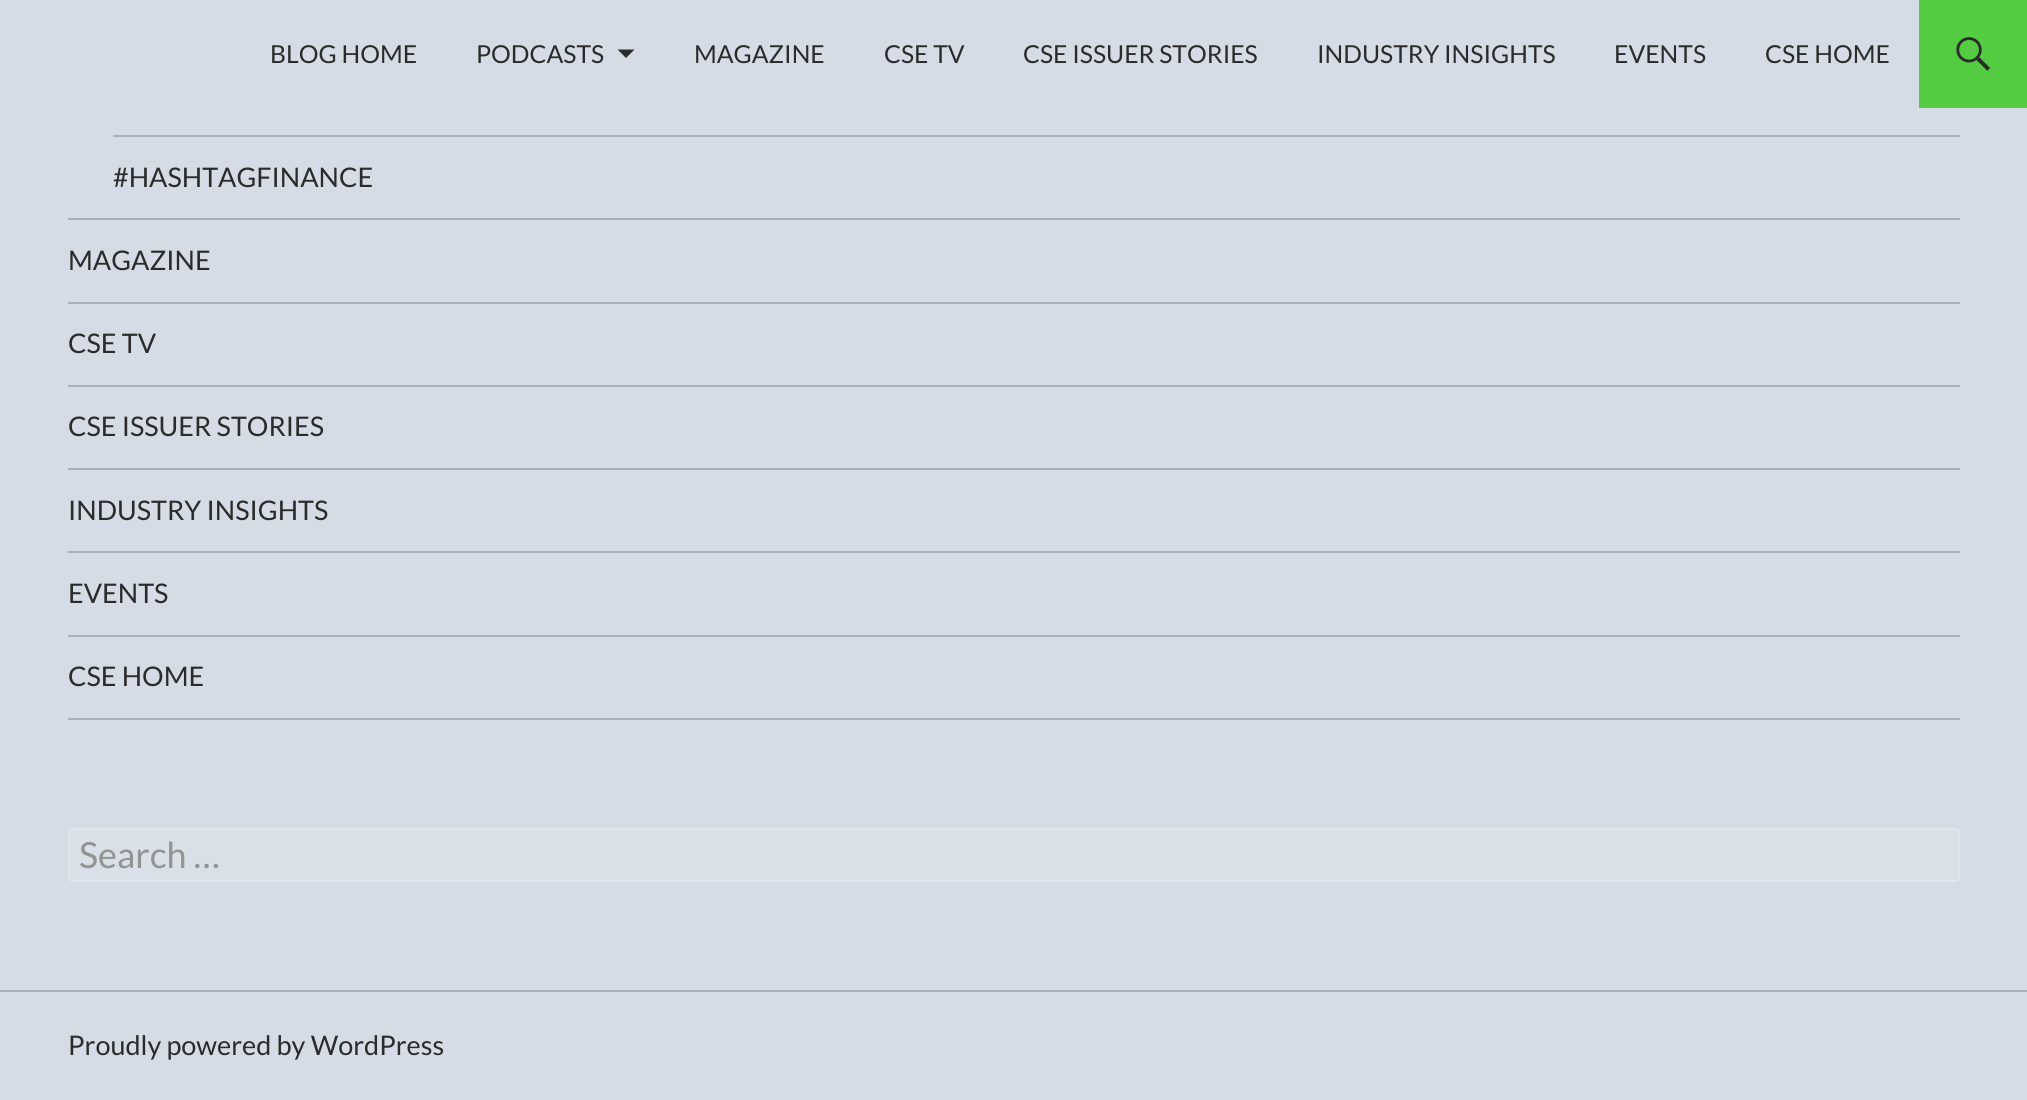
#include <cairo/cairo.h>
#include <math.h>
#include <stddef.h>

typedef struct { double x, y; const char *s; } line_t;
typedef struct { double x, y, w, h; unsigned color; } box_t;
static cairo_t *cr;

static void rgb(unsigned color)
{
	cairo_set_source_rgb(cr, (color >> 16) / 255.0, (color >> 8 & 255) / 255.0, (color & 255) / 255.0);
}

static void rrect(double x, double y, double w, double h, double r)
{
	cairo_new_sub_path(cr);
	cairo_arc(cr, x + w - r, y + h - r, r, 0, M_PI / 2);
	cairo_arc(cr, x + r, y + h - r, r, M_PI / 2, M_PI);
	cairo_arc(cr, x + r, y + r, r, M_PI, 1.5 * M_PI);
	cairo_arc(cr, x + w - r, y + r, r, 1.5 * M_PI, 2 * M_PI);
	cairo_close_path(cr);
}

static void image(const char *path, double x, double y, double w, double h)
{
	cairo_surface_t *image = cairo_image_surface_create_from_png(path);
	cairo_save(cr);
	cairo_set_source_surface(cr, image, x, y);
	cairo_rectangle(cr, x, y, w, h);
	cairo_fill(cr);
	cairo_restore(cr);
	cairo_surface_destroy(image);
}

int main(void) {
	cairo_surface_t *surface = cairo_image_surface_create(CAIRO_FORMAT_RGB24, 2027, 1100);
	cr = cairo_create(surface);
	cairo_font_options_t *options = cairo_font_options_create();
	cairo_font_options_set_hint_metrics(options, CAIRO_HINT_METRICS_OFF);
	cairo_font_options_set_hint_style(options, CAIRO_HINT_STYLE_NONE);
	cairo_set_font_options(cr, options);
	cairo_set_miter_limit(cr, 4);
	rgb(0xd6dce5);
	cairo_paint(cr);
	rgb(0x2b2b2b);
	cairo_new_path(cr);
	cairo_move_to(cr, 617.5, 49.5);
	cairo_line_to(cr, 634.5, 49.5);
	cairo_line_to(cr, 626, 58);
	cairo_close_path(cr);
	cairo_fill(cr);
	rgb(0x53cc42);
	cairo_rectangle(cr, 1919, 0, 108, 108);
	cairo_fill(cr);
	image("img/1.png", 1956, 37, 34, 34);
	{
		static const box_t items[] = {
			{0, 990, 2027, 2, 0xabb0b7},
			{68, 718, 1892, 2, 0xabb0b7},
			{113, 135, 1847, 2, 0xabb0b7},
			{68, 218, 1892, 2, 0xabb0b7},
			{68, 302, 1892, 2, 0xabb0b7},
			{68, 385, 1892, 2, 0xabb0b7},
			{68, 468, 1892, 2, 0xabb0b7},
			{68, 551, 1892, 2, 0xabb0b7},
			{68, 635, 1892, 2, 0xabb0b7},
		};
		for (size_t i = 0; i < sizeof items / sizeof *items; i++) {
			rgb(items[i].color);
			cairo_rectangle(cr, items[i].x, items[i].y, items[i].w, items[i].h);
			cairo_fill(cr);
		}
	}
	rgb(0xdae0e7);
	rrect(69, 829, 1890, 52, 4);
	cairo_fill_preserve(cr);
	rgb(0xe1e6ec);
	cairo_stroke(cr);
	cairo_select_font_face(cr, "Lato", CAIRO_FONT_SLANT_NORMAL, CAIRO_FONT_WEIGHT_NORMAL);
	cairo_set_font_size(cr, 24.75);
	rgb(0x2b2b2b);
	{
		static const line_t items[] = {
			{270, 63, "BLOG HOME"},
			{476, 63, "PODCASTS"},
			{694, 63, "MAGAZINE"},
			{884, 63, "CSE TV"},
			{1023, 63, "CSE ISSUER STORIES"},
			{1317, 63, "INDUSTRY INSIGHTS"},
			{1614, 63, "EVENTS"},
			{1765, 63, "CSE HOME"},
		};
		for (size_t i = 0; i < sizeof items / sizeof *items; i++) {
			cairo_move_to(cr, items[i].x, items[i].y);
			cairo_show_text(cr, items[i].s);
		}
	}
	cairo_set_font_size(cr, 27);
	{
		static const line_t items[] = {
			{113, 187, "#HASHTAGFINANCE"},
			{68, 270, "MAGAZINE"},
			{68, 353, "CSE TV"},
			{68, 436, "CSE ISSUER STORIES"},
			{68, 520, "INDUSTRY INSIGHTS"},
			{68, 603, "EVENTS"},
			{68, 686, "CSE HOME"},
		};
		for (size_t i = 0; i < sizeof items / sizeof *items; i++) {
			cairo_move_to(cr, items[i].x, items[i].y);
			cairo_show_text(cr, items[i].s);
		}
	}
	cairo_set_font_size(cr, 36);
	rgb(0x939393);
	cairo_move_to(cr, 79, 868);
	cairo_show_text(cr, "Search …");
	cairo_set_font_size(cr, 27);
	rgb(0x2b2b2b);
	cairo_move_to(cr, 68, 1055);
	cairo_show_text(cr, "Proudly powered by WordPress");
	cairo_surface_write_to_png(surface, "page.png");
	cairo_font_options_destroy(options);
	cairo_destroy(cr);
	cairo_surface_destroy(surface);
	return 0;
}
